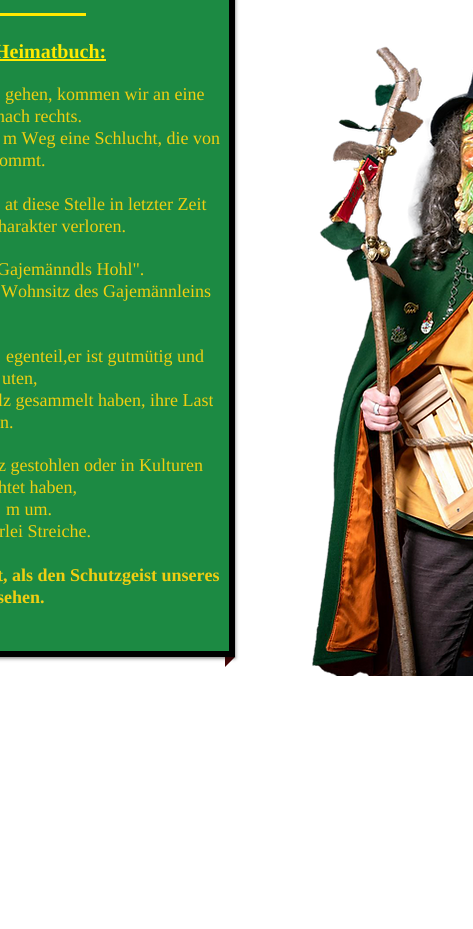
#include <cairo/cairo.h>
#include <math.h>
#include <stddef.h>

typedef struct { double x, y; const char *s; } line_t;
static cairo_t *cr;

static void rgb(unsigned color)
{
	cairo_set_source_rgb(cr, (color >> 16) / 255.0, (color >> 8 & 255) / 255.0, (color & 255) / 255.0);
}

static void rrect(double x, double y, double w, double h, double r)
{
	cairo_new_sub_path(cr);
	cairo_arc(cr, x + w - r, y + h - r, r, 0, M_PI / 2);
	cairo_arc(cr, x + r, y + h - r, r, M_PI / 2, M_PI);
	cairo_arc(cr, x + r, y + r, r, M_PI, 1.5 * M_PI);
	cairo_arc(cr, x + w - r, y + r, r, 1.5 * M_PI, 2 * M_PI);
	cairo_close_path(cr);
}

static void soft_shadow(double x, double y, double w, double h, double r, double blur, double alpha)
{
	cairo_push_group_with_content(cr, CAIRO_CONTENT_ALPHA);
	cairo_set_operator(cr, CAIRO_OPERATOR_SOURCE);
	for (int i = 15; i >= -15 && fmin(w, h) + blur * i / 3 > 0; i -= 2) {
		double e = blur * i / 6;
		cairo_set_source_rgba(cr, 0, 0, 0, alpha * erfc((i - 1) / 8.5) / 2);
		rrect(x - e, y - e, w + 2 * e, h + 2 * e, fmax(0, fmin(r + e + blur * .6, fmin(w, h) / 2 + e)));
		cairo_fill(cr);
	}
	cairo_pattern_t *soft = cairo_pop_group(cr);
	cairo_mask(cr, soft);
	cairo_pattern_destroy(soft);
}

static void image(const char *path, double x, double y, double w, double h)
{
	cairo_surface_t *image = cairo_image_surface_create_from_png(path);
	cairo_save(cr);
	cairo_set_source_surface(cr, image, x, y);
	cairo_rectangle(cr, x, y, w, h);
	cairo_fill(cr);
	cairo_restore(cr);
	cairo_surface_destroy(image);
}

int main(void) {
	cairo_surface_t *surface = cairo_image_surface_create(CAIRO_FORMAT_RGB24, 473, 929);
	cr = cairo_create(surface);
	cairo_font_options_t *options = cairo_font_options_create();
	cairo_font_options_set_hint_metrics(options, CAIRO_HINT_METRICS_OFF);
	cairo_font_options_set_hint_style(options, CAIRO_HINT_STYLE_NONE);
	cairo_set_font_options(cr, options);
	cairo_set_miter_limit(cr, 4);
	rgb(0xffffff);
	cairo_paint(cr);
	rgb(0x440506);
	cairo_new_path(cr);
	cairo_move_to(cr, 225, 657);
	cairo_line_to(cr, 235, 657);
	cairo_line_to(cr, 225, 667);
	cairo_close_path(cr);
	cairo_fill(cr);
	rgb(0x000000);
	soft_shadow(-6, -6, 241, 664, 0, 2, 0.6);
	rgb(0x1c8a43);
	cairo_rectangle(cr, -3, -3, 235, 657);
	cairo_fill_preserve(cr);
	rgb(0x000000);
	cairo_set_line_width(cr, 6);
	cairo_stroke(cr);
	rgb(0xffe900);
	cairo_rectangle(cr, 0, 13, 86, 3);
	cairo_fill(cr);
	cairo_rectangle(cr, 0, 59, 106, 2);
	cairo_fill(cr);
	image("img/1.png", 312, 46, 161, 630);
	cairo_select_font_face(cr, "Liberation Serif", CAIRO_FONT_SLANT_NORMAL, CAIRO_FONT_WEIGHT_BOLD);
	cairo_set_font_size(cr, 20);
	cairo_move_to(cr, -6, 58);
	cairo_show_text(cr, "Heimatbuch:");
	cairo_select_font_face(cr, "Liberation Serif", CAIRO_FONT_SLANT_NORMAL, CAIRO_FONT_WEIGHT_NORMAL);
	cairo_set_font_size(cr, 18);
	rgb(0xf0ce11);
	{
		static const line_t items[] = {
			{5, 100, "gehen, kommen wir an eine"},
			{-4, 122, "nach rechts."},
			{3, 144, "m Weg eine Schlucht, die von"},
			{-1, 166, "ommt."},
			{5, 210, "at diese Stelle in letzter Zeit"},
			{-2, 232, "harakter verloren."},
			{-3, 275, "Gajemänndls Hohl\"."},
			{1, 297, "Wohnsitz des Gajemännleins"},
			{6, 362, "egenteil,er ist gutmütig und"},
			{2, 384, "uten,"},
			{-2, 406, "lz gesammelt haben, ihre Last"},
			{0, 428, "n."},
			{-2, 471, "z gestohlen oder in Kulturen"},
			{-2, 493, "htet haben,"},
			{6, 515, "m um."},
			{-1, 537, "rlei Streiche."},
		};
		for (size_t i = 0; i < sizeof items / sizeof *items; i++) {
			cairo_move_to(cr, items[i].x, items[i].y);
			cairo_show_text(cr, items[i].s);
		}
	}
	cairo_select_font_face(cr, "Liberation Serif", CAIRO_FONT_SLANT_NORMAL, CAIRO_FONT_WEIGHT_BOLD);
	cairo_move_to(cr, -3, 581);
	cairo_show_text(cr, "t, als den Schutzgeist unseres");
	cairo_move_to(cr, -3, 603);
	cairo_show_text(cr, "sehen.");
	cairo_surface_write_to_png(surface, "page.png");
	cairo_font_options_destroy(options);
	cairo_destroy(cr);
	cairo_surface_destroy(surface);
	return 0;
}
